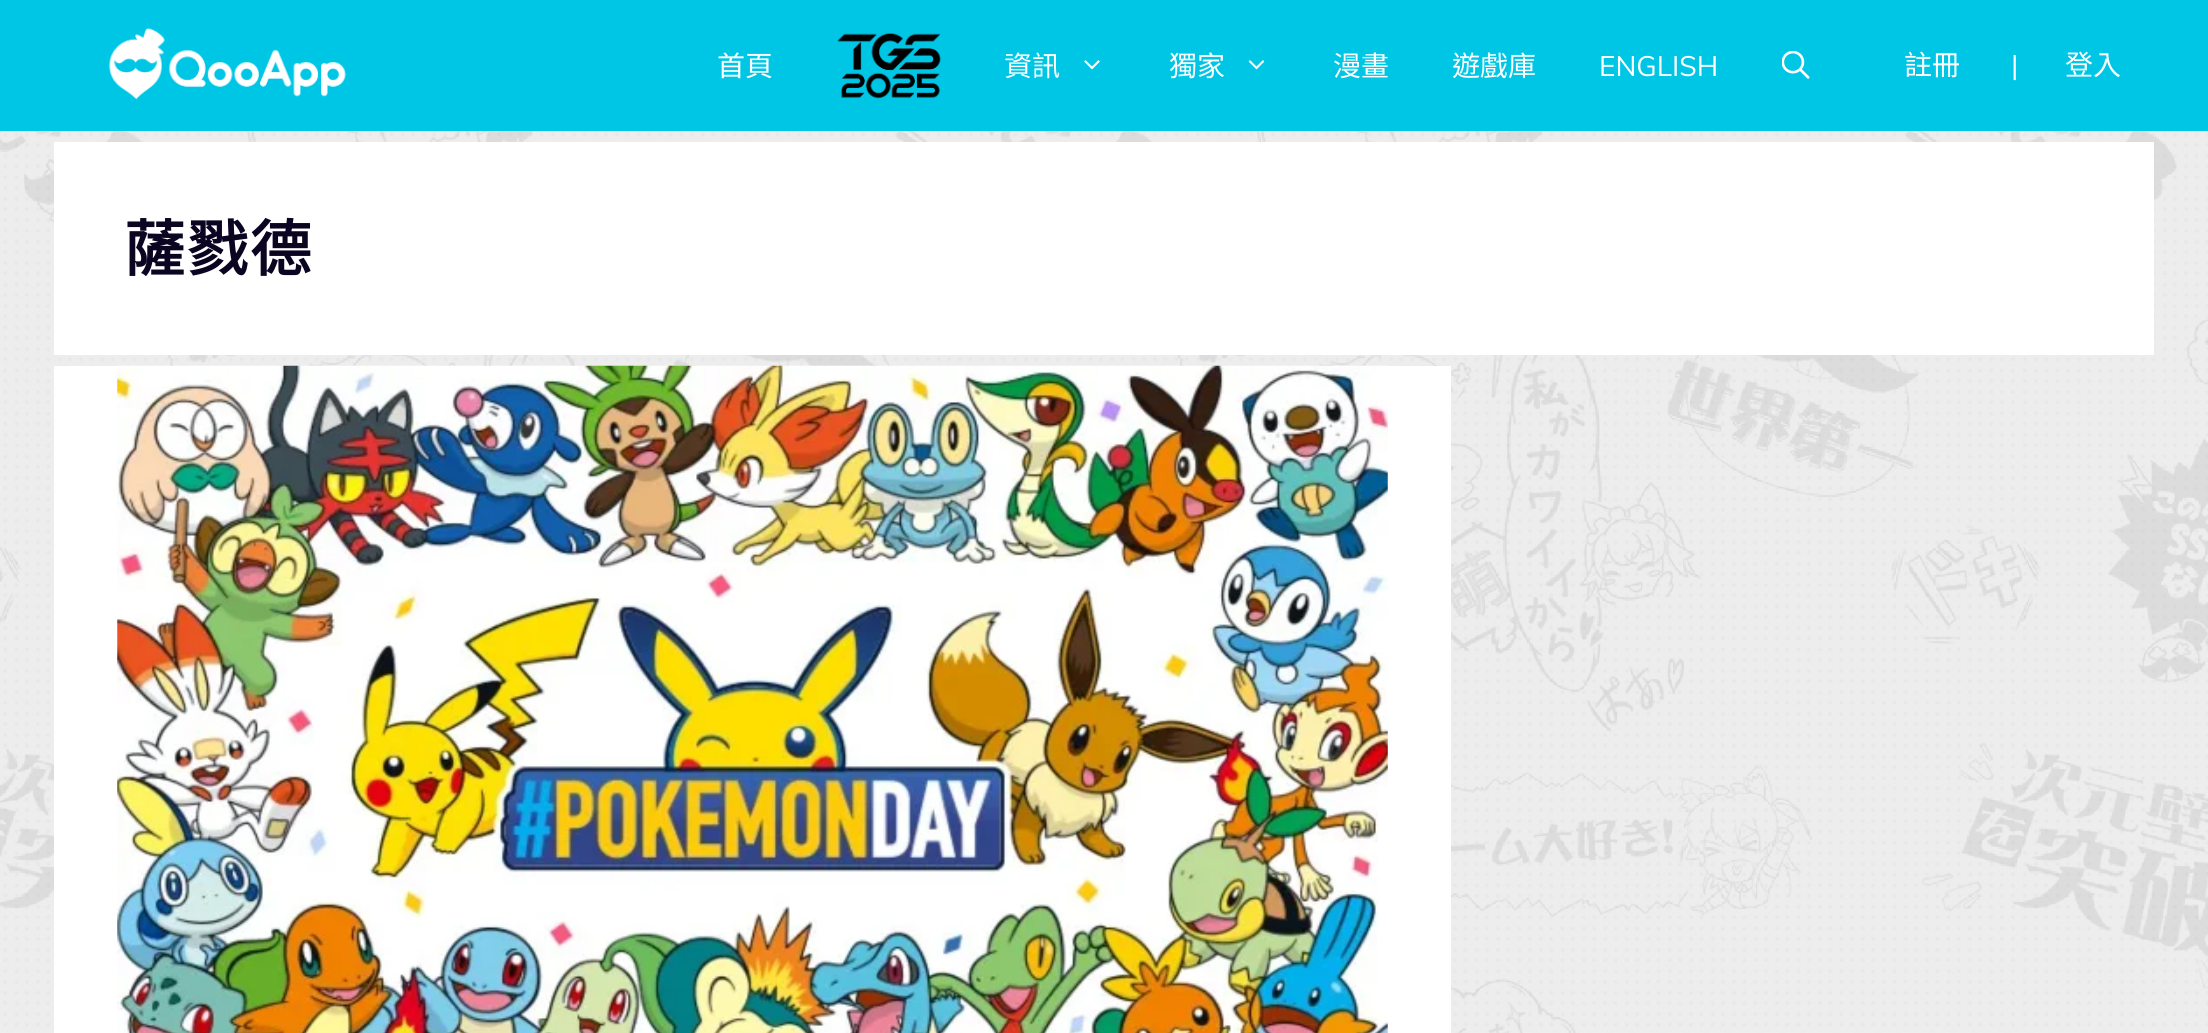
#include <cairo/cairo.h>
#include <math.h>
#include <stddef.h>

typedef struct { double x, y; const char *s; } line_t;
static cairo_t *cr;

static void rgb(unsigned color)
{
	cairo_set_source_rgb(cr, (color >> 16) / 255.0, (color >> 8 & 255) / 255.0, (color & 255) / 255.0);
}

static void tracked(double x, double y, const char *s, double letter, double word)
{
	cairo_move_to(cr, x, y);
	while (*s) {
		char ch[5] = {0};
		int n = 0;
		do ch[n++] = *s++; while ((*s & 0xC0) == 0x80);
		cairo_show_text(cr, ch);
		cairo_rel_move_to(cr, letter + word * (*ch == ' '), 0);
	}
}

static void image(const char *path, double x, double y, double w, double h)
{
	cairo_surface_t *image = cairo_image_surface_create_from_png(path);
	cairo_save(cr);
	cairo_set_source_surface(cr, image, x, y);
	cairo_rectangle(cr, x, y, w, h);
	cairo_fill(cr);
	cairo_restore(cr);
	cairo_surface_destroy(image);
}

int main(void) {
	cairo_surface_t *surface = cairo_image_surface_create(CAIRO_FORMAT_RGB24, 2208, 1033);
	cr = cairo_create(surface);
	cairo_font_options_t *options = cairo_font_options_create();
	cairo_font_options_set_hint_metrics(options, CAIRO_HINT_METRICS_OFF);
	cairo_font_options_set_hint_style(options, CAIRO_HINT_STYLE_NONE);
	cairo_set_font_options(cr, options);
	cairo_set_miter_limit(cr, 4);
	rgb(0xffffff);
	cairo_paint(cr);
	image("img/1.png", 0, 131, 2208, 902);
	rgb(0x00c6e6);
	cairo_rectangle(cr, 0, 0, 2208, 131);
	cairo_fill(cr);
	image("img/2.png", 109, 27, 237, 73);
	image("img/3.png", 837, 33, 104, 66);
	image("img/4.png", 1084, 60, 16, 10);
	image("img/5.png", 1248, 60, 17, 10);
	image("img/6.png", 1782, 51, 28, 28);
	rgb(0xffffff);
	cairo_rectangle(cr, 54, 142, 2100, 213);
	cairo_fill(cr);
	cairo_rectangle(cr, 54, 366, 1397, 667);
	cairo_fill(cr);
	image("img/7.png", 117, 365, 1271, 668);
	cairo_select_font_face(cr, "Noto Sans CJK TC", CAIRO_FONT_SLANT_NORMAL, CAIRO_FONT_WEIGHT_NORMAL);
	cairo_set_font_size(cr, 28);
	{
		static const line_t items[] = {
			{717, 76, "首頁"},
			{1004, 76, "資訊"},
			{1169, 76, "獨家"},
			{1333, 76, "漫畫"},
			{1452, 76, "遊戲庫"},
		};
		for (size_t i = 0; i < sizeof items / sizeof *items; i++) {
			cairo_move_to(cr, items[i].x, items[i].y);
			cairo_show_text(cr, items[i].s);
		}
	}
	cairo_select_font_face(cr, "Muli", CAIRO_FONT_SLANT_NORMAL, CAIRO_FONT_WEIGHT_NORMAL);
	cairo_move_to(cr, 1599, 76);
	cairo_show_text(cr, "ENGLISH");
	cairo_select_font_face(cr, "Noto Sans CJK TC", CAIRO_FONT_SLANT_NORMAL, CAIRO_FONT_WEIGHT_NORMAL);
	cairo_move_to(cr, 1904, 75);
	cairo_show_text(cr, "註冊");
	cairo_select_font_face(cr, "Muli", CAIRO_FONT_SLANT_NORMAL, CAIRO_FONT_WEIGHT_NORMAL);
	cairo_move_to(cr, 2011, 75);
	cairo_show_text(cr, "|");
	cairo_select_font_face(cr, "Noto Sans CJK TC", CAIRO_FONT_SLANT_NORMAL, CAIRO_FONT_WEIGHT_NORMAL);
	cairo_move_to(cr, 2065, 75);
	cairo_show_text(cr, "登入");
	cairo_select_font_face(cr, "Noto Sans CJK TC", CAIRO_FONT_SLANT_NORMAL, CAIRO_FONT_WEIGHT_BOLD);
	cairo_set_font_size(cr, 61);
	rgb(0x0b0521);
	tracked(124, 271, "薩戮德", 2, 0);
	cairo_surface_write_to_png(surface, "page.png");
	cairo_font_options_destroy(options);
	cairo_destroy(cr);
	cairo_surface_destroy(surface);
	return 0;
}
